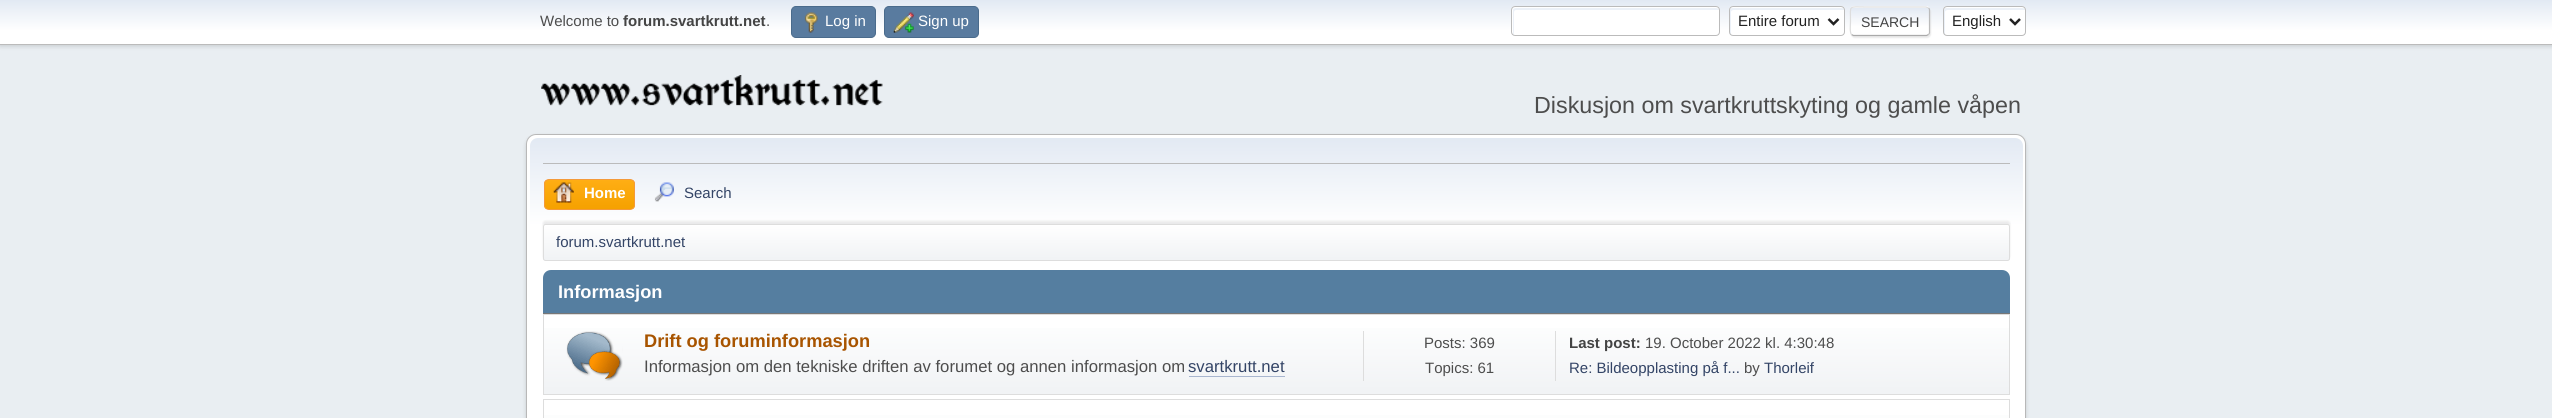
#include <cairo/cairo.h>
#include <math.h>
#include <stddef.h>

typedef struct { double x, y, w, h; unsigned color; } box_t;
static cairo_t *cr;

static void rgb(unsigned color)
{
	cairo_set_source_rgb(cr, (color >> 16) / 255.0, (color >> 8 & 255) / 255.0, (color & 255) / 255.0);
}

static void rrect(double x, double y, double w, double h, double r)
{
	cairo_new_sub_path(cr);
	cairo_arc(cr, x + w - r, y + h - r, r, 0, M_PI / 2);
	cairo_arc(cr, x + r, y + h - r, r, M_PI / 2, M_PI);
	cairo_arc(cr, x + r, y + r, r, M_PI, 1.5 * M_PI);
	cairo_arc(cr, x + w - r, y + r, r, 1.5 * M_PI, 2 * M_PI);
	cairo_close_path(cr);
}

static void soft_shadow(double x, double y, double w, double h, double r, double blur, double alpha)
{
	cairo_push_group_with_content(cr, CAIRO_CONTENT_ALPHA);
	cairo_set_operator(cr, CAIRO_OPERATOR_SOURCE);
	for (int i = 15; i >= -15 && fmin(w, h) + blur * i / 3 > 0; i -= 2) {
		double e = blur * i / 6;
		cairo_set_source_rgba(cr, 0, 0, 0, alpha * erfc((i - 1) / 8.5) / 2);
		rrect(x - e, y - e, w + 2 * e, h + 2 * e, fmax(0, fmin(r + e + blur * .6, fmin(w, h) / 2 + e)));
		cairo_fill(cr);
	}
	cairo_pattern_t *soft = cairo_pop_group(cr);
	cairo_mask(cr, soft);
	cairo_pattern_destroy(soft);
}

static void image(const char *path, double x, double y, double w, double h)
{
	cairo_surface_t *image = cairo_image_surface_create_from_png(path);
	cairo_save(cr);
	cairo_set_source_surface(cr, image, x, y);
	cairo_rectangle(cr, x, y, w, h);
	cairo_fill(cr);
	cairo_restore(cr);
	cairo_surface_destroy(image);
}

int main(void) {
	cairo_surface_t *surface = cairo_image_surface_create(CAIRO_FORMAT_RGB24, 2552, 418);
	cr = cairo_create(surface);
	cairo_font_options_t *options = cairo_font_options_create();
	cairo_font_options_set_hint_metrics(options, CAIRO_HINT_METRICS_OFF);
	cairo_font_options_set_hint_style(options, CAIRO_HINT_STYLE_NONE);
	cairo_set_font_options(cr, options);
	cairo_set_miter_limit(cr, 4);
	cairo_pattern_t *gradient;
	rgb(0xe9eef2);
	cairo_paint(cr);
	rgb(0x000000);
	soft_shadow(0, 1, 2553, 45, 0, 2.5, 0.16);
	gradient = cairo_pattern_create_linear(1276, 0, 1276, 44);
	cairo_pattern_add_color_stop_rgba(gradient, 0, 0.886, 0.914, 0.953, 1);
	cairo_pattern_add_color_stop_rgba(gradient, 0.7, 1, 1, 1, 1);
	cairo_set_source(cr, gradient);
	cairo_pattern_destroy(gradient);
	cairo_rectangle(cr, 0, 0, 2552, 44);
	cairo_fill(cr);
	rgb(0xbbbbbb);
	cairo_rectangle(cr, 0, 44, 2552, 1);
	cairo_fill(cr);
	rgb(0x597b9f);
	rrect(791.5, 6.5, 84, 31, 4.5);
	cairo_fill_preserve(cr);
	rgb(0x4a6b8c);
	cairo_set_line_width(cr, 1);
	cairo_stroke(cr);
	image("img/1.png", 804, 12, 14, 21);
	rgb(0x597b9f);
	rrect(884.5, 6.5, 94, 31, 4.5);
	cairo_fill_preserve(cr);
	rgb(0x4a6b8c);
	cairo_stroke(cr);
	image("img/2.png", 893, 12, 21, 21);
	rgb(0xffffff);
	rrect(1511, 6, 209, 30, 4);
	cairo_fill(cr);
	rgb(0xecf1f8);
	cairo_new_path(cr);
	cairo_move_to(cr, 1516, 10);
	cairo_line_to(cr, 1719, 10);
	cairo_curve_to(cr, 1719, 9, 1718, 8, 1716, 8);
	cairo_line_to(cr, 1516, 8);
	cairo_curve_to(cr, 1514, 8, 1513, 9, 1513, 10);
	cairo_line_to(cr, 1513, 32);
	cairo_curve_to(cr, 1513, 33, 1513, 34, 1514, 35);
	cairo_line_to(cr, 1514, 12);
	cairo_curve_to(cr, 1514, 11, 1515, 10, 1516, 10);
	cairo_close_path(cr);
	cairo_fill(cr);
	rrect(1511.5, 6.5, 208, 29, 3.5);
	rgb(0xbbbbbb);
	cairo_stroke(cr);
	rgb(0xffffff);
	rrect(1729, 6, 116, 30, 4);
	cairo_fill(cr);
	rgb(0xecf1f8);
	cairo_new_path(cr);
	cairo_move_to(cr, 1734, 10);
	cairo_line_to(cr, 1842, 10);
	cairo_line_to(cr, 1844, 10);
	cairo_curve_to(cr, 1844, 9, 1843, 8, 1842, 8);
	cairo_line_to(cr, 1732, 8);
	cairo_curve_to(cr, 1731, 8, 1730, 9, 1730, 10);
	cairo_line_to(cr, 1730, 32);
	cairo_curve_to(cr, 1730, 33, 1730, 34, 1731, 35);
	cairo_line_to(cr, 1731, 12);
	cairo_curve_to(cr, 1731, 11, 1732, 10, 1734, 10);
	cairo_close_path(cr);
	cairo_fill(cr);
	rrect(1729.5, 6.5, 115, 29, 3.5);
	rgb(0xbbbbbb);
	cairo_stroke(cr);
	cairo_new_path(cr);
	cairo_move_to(cr, 1828.5, 19);
	cairo_line_to(cr, 1833.5, 24);
	cairo_line_to(cr, 1838.5, 19);
	rgb(0x222222);
	cairo_set_line_width(cr, 2.5);
	cairo_stroke(cr);
	rgb(0xdddddd);
	soft_shadow(1851, 8, 80, 30, 4, 0.5, 0.57);
	cairo_save(cr);
	rrect(1850, 6, 80, 30, 4);
	cairo_clip(cr);
	gradient = cairo_pattern_create_linear(1890, -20, 1890, 7.5);
	cairo_pattern_add_color_stop_rgba(gradient, 0, 0.886, 0.914, 0.953, 1);
	cairo_pattern_add_color_stop_rgba(gradient, 0.7, 1, 1, 1, 1);
	cairo_set_source(cr, gradient);
	cairo_pattern_destroy(gradient);
	cairo_rectangle(cr, 1850, 6, 80, 2);
	cairo_fill(cr);
	gradient = cairo_pattern_create_linear(1890, 7.5, 1890, 35);
	cairo_pattern_add_color_stop_rgba(gradient, 0, 0.886, 0.914, 0.953, 1);
	cairo_pattern_add_color_stop_rgba(gradient, 0.7, 1, 1, 1, 1);
	cairo_set_source(cr, gradient);
	cairo_pattern_destroy(gradient);
	cairo_rectangle(cr, 1850, 8, 80, 27);
	cairo_fill(cr);
	cairo_restore(cr);
	cairo_new_path(cr);
	cairo_move_to(cr, 1928.5, 8);
	cairo_curve_to(cr, 1929, 8.5, 1929.5, 9, 1929.5, 10);
	cairo_line_to(cr, 1929.5, 32.5);
	cairo_curve_to(cr, 1929.5, 33.5, 1929, 34, 1928.5, 34.5);
	rgb(0xbbbbbb);
	cairo_set_line_width(cr, 1.2);
	cairo_stroke(cr);
	cairo_new_path(cr);
	cairo_move_to(cr, 1928.5, 34.5);
	cairo_line_to(cr, 1926.5, 35.5);
	cairo_line_to(cr, 1853.5, 35.5);
	cairo_line_to(cr, 1851.5, 34.5);
	rgb(0xaaaaaa);
	cairo_stroke(cr);
	cairo_new_path(cr);
	cairo_move_to(cr, 1851.5, 34.5);
	cairo_curve_to(cr, 1849.5, 32.5, 1850.5, 24, 1850.5, 21);
	cairo_curve_to(cr, 1850.5, 4.5, 1848, 7, 1866, 7);
	cairo_line_to(cr, 1926, 7);
	cairo_line_to(cr, 1928.5, 8);
	rgb(0xdddddd);
	cairo_stroke(cr);
	rgb(0xffffff);
	rrect(1943, 6, 83, 30, 4);
	cairo_fill(cr);
	rgb(0xecf1f8);
	cairo_new_path(cr);
	cairo_move_to(cr, 1948, 10);
	cairo_line_to(cr, 2025, 10);
	cairo_curve_to(cr, 2025, 9, 2024, 8, 2022, 8);
	cairo_line_to(cr, 1946, 8);
	cairo_curve_to(cr, 1945, 8, 1944, 9, 1944, 10);
	cairo_line_to(cr, 1944, 32);
	cairo_curve_to(cr, 1944, 33, 1944, 34, 1945, 35);
	cairo_line_to(cr, 1945, 12);
	cairo_curve_to(cr, 1945, 11, 1946, 10, 1948, 10);
	cairo_close_path(cr);
	cairo_fill(cr);
	rrect(1943.5, 6.5, 82, 29, 3.5);
	rgb(0xbbbbbb);
	cairo_set_line_width(cr, 1);
	cairo_stroke(cr);
	cairo_new_path(cr);
	cairo_move_to(cr, 2010, 19);
	cairo_line_to(cr, 2015, 24);
	cairo_line_to(cr, 2020, 19);
	rgb(0x222222);
	cairo_set_line_width(cr, 2.5);
	cairo_stroke(cr);
	image("img/3.png", 541, 75, 342, 31);
	rgb(0x000000);
	soft_shadow(526, 136, 1500, 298, 10, 2, 0.14);
	rgb(0xffffff);
	rrect(526.5, 134.5, 1499, 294, 9.5);
	cairo_fill_preserve(cr);
	rgb(0xb8b8b8);
	cairo_set_line_width(cr, 1);
	cairo_stroke(cr);
	gradient = cairo_pattern_create_linear(1276, 137, 1276, 264);
	cairo_pattern_add_color_stop_rgba(gradient, 0, 0.886, 0.914, 0.953, 1);
	cairo_pattern_add_color_stop_rgba(gradient, 0.7, 1, 1, 1, 1);
	cairo_set_source(cr, gradient);
	cairo_pattern_destroy(gradient);
	cairo_new_path(cr);
	cairo_move_to(cr, 538, 138);
	cairo_line_to(cr, 2015, 138);
	cairo_curve_to(cr, 2019.5, 138, 2023, 141.5, 2023, 146);
	cairo_line_to(cr, 2023, 264);
	cairo_line_to(cr, 530, 264);
	cairo_line_to(cr, 530, 146);
	cairo_curve_to(cr, 530, 141.5, 533.5, 138, 538, 138);
	cairo_close_path(cr);
	cairo_fill(cr);
	rgb(0xbbbbbb);
	cairo_rectangle(cr, 543, 163, 1467, 1);
	cairo_fill(cr);
	cairo_save(cr);
	rrect(544, 179, 91, 31, 5);
	cairo_clip(cr);
	gradient = cairo_pattern_create_linear(589, 180, 589, 209);
	cairo_pattern_add_color_stop_rgba(gradient, 0, 1, 0.682, 0.078, 1);
	cairo_pattern_add_color_stop_rgba(gradient, 1, 0.961, 0.631, 0, 1);
	cairo_set_source(cr, gradient);
	cairo_pattern_destroy(gradient);
	cairo_rectangle(cr, 544, 180, 91, 29);
	cairo_fill(cr);
	cairo_restore(cr);
	rrect(544.5, 179.5, 90, 30, 4.5);
	rgb(0xf49a3a);
	cairo_stroke(cr);
	image("img/4.png", 553, 182, 21, 21);
	image("img/5.png", 654, 182, 20, 20);
	rgb(0x000000);
	soft_shadow(543, 221, 1467, 38, 2.5, 1, 0.08);
	cairo_save(cr);
	rrect(543, 224, 1467, 37, 2.5);
	cairo_clip(cr);
	gradient = cairo_pattern_create_linear(1276, 225, 1276, 260);
	cairo_pattern_add_color_stop_rgba(gradient, 0, 1, 1, 1, 1);
	cairo_pattern_add_color_stop_rgba(gradient, 0.95, 0.945, 0.953, 0.961, 1);
	cairo_set_source(cr, gradient);
	cairo_pattern_destroy(gradient);
	cairo_rectangle(cr, 543, 225, 1467, 35);
	cairo_fill(cr);
	cairo_restore(cr);
	rrect(543.5, 224.5, 1466, 36, 2);
	rgb(0xdddddd);
	cairo_stroke(cr);
	rgb(0x557ea0);
	cairo_new_path(cr);
	cairo_move_to(cr, 551, 270);
	cairo_line_to(cr, 2002, 270);
	cairo_curve_to(cr, 2006.5, 270, 2010, 273.5, 2010, 278);
	cairo_line_to(cr, 2010, 314);
	cairo_line_to(cr, 543, 314);
	cairo_line_to(cr, 543, 278);
	cairo_curve_to(cr, 543, 273.5, 546.5, 270, 551, 270);
	cairo_close_path(cr);
	cairo_fill(cr);
	rgb(0x777777);
	cairo_rectangle(cr, 543, 313, 1467, 1);
	cairo_fill(cr);
	gradient = cairo_pattern_create_linear(1276, 315, 1276, 394);
	cairo_pattern_add_color_stop_rgba(gradient, 0, 1, 1, 1, 1);
	cairo_pattern_add_color_stop_rgba(gradient, 0.95, 0.945, 0.953, 0.961, 1);
	cairo_set_source(cr, gradient);
	cairo_pattern_destroy(gradient);
	cairo_rectangle(cr, 544, 328, 1465, 66);
	cairo_fill(cr);
	cairo_rectangle(cr, 543.5, 314.5, 1466, 80);
	rgb(0xdddddd);
	cairo_stroke(cr);
	image("img/6.png", 566, 331, 57, 50);
	{
		static const box_t items[] = {
			{1189, 376, 96, 1, 0xa8b6cf},
			{1555, 331, 1, 50, 0xdddddd},
			{1363, 331, 1, 50, 0xdddddd},
		};
		for (size_t i = 0; i < sizeof items / sizeof *items; i++) {
			rgb(items[i].color);
			cairo_rectangle(cr, items[i].x, items[i].y, items[i].w, items[i].h);
			cairo_fill(cr);
		}
	}
	gradient = cairo_pattern_create_linear(1276, 400, 1276, 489);
	cairo_pattern_add_color_stop_rgba(gradient, 0, 1, 1, 1, 1);
	cairo_pattern_add_color_stop_rgba(gradient, 0.95, 0.945, 0.953, 0.961, 1);
	cairo_set_source(cr, gradient);
	cairo_pattern_destroy(gradient);
	cairo_rectangle(cr, 544, 415, 1465, 3);
	cairo_fill(cr);
	cairo_rectangle(cr, 543.5, 399.5, 1466, 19);
	rgb(0xdddddd);
	cairo_stroke(cr);
	cairo_select_font_face(cr, "Liberation Sans", CAIRO_FONT_SLANT_NORMAL, CAIRO_FONT_WEIGHT_NORMAL);
	cairo_set_font_size(cr, 15);
	rgb(0x4d4d4d);
	cairo_move_to(cr, 540, 26);
	cairo_show_text(cr, "Welcome to");
	cairo_select_font_face(cr, "Liberation Sans", CAIRO_FONT_SLANT_NORMAL, CAIRO_FONT_WEIGHT_BOLD);
	rgb(0x444444);
	cairo_move_to(cr, 623, 26);
	cairo_show_text(cr, "forum.svartkrutt.net");
	cairo_select_font_face(cr, "Liberation Sans", CAIRO_FONT_SLANT_NORMAL, CAIRO_FONT_WEIGHT_NORMAL);
	rgb(0x4d4d4d);
	cairo_move_to(cr, 766, 26);
	cairo_show_text(cr, ".");
	rgb(0xffffff);
	cairo_move_to(cr, 825, 26);
	cairo_show_text(cr, "Log in");
	cairo_move_to(cr, 918, 26);
	cairo_show_text(cr, "Sign up");
	rgb(0x222222);
	cairo_move_to(cr, 1738, 26);
	cairo_show_text(cr, "Entire forum");
	cairo_set_font_size(cr, 14);
	rgb(0x444444);
	cairo_move_to(cr, 1861, 27);
	cairo_show_text(cr, "SEARCH");
	cairo_set_font_size(cr, 15);
	rgb(0x222222);
	cairo_move_to(cr, 1952, 26);
	cairo_show_text(cr, "English");
	cairo_set_font_size(cr, 23.3);
	rgb(0x4d4d4d);
	cairo_move_to(cr, 1534, 113);
	cairo_show_text(cr, "Diskusjon om svartkruttskyting og gamle våpen");
	cairo_select_font_face(cr, "Liberation Sans", CAIRO_FONT_SLANT_NORMAL, CAIRO_FONT_WEIGHT_BOLD);
	cairo_set_font_size(cr, 15);
	rgb(0xffffff);
	cairo_move_to(cr, 584, 198);
	cairo_show_text(cr, "Home");
	cairo_select_font_face(cr, "Liberation Sans", CAIRO_FONT_SLANT_NORMAL, CAIRO_FONT_WEIGHT_NORMAL);
	rgb(0x334466);
	cairo_move_to(cr, 684, 198);
	cairo_show_text(cr, "Search");
	cairo_move_to(cr, 556, 247);
	cairo_show_text(cr, "forum.svartkrutt.net");
	cairo_select_font_face(cr, "Liberation Sans", CAIRO_FONT_SLANT_NORMAL, CAIRO_FONT_WEIGHT_BOLD);
	cairo_set_font_size(cr, 18.25);
	rgb(0xffffff);
	cairo_move_to(cr, 558, 298);
	cairo_show_text(cr, "Informasjon");
	rgb(0xa85400);
	cairo_move_to(cr, 644, 347);
	cairo_show_text(cr, "Drift og foruminformasjon");
	cairo_select_font_face(cr, "Liberation Sans", CAIRO_FONT_SLANT_NORMAL, CAIRO_FONT_WEIGHT_NORMAL);
	cairo_set_font_size(cr, 16.7);
	rgb(0x4d4d4d);
	cairo_move_to(cr, 644, 372);
	cairo_show_text(cr, "Informasjon om den tekniske driften av forumet og annen informasjon om");
	rgb(0x334466);
	cairo_move_to(cr, 1188, 372);
	cairo_show_text(cr, "svartkrutt.net");
	cairo_set_font_size(cr, 15);
	rgb(0x4d4d4d);
	cairo_move_to(cr, 1424, 348);
	cairo_show_text(cr, "Posts: 369");
	cairo_move_to(cr, 1425, 373);
	cairo_show_text(cr, "Topics: 61");
	cairo_select_font_face(cr, "Liberation Sans", CAIRO_FONT_SLANT_NORMAL, CAIRO_FONT_WEIGHT_BOLD);
	rgb(0x444444);
	cairo_move_to(cr, 1569, 348);
	cairo_show_text(cr, "Last post:");
	cairo_select_font_face(cr, "Liberation Sans", CAIRO_FONT_SLANT_NORMAL, CAIRO_FONT_WEIGHT_NORMAL);
	rgb(0x4d4d4d);
	cairo_move_to(cr, 1645, 348);
	cairo_show_text(cr, "19. October 2022 kl. 4:30:48");
	rgb(0x334466);
	cairo_move_to(cr, 1569, 373);
	cairo_show_text(cr, "Re: Bildeopplasting på f...");
	rgb(0x4d4d4d);
	cairo_move_to(cr, 1744, 373);
	cairo_show_text(cr, "by");
	rgb(0x334466);
	cairo_move_to(cr, 1764, 373);
	cairo_show_text(cr, "Thorleif");
	cairo_surface_write_to_png(surface, "page.png");
	cairo_font_options_destroy(options);
	cairo_destroy(cr);
	cairo_surface_destroy(surface);
	return 0;
}
